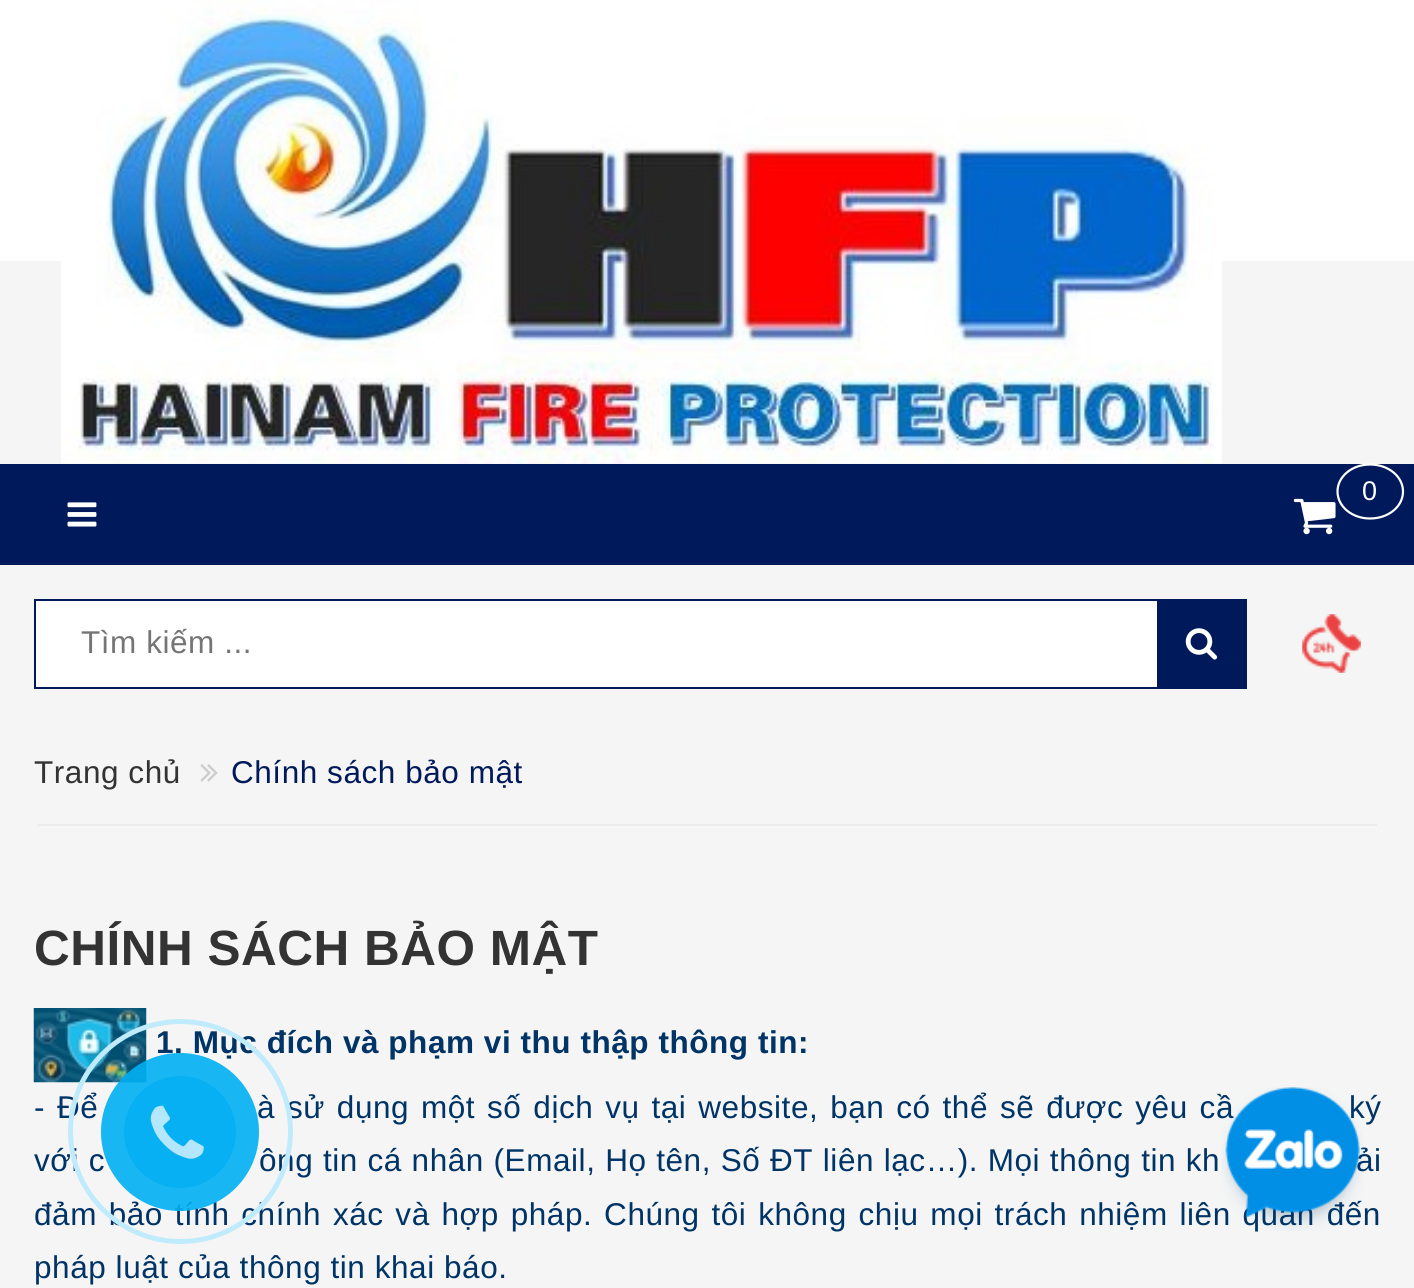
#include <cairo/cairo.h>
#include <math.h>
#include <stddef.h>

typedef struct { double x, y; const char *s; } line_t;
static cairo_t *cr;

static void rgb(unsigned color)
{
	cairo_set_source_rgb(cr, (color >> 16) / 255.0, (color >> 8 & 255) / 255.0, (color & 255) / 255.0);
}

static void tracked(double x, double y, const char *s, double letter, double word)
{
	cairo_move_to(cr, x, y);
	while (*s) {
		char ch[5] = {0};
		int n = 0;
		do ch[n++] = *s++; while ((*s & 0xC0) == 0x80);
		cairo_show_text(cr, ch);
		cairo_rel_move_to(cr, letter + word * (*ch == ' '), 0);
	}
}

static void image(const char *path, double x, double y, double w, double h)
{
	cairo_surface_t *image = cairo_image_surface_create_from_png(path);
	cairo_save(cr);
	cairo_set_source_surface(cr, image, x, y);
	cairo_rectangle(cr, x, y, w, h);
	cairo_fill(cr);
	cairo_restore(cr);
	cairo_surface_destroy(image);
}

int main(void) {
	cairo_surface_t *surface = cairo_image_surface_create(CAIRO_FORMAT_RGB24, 1414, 1288);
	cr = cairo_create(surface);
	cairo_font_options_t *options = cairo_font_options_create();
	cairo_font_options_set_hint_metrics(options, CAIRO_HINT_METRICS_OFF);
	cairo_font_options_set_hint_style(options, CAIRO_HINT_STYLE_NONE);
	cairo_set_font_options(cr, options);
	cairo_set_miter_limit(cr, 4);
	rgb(0xf5f5f5);
	cairo_paint(cr);
	rgb(0xffffff);
	cairo_rectangle(cr, 0, 0, 1414, 261);
	cairo_fill(cr);
	image("img/1.png", 61, 0, 1161, 464);
	rgb(0x00195a);
	cairo_rectangle(cr, 0, 464, 1414, 101);
	cairo_fill(cr);
	cairo_new_path(cr);
	cairo_move_to(cr, 1370, 464.5);
	cairo_curve_to(cr, 1388.5, 464.5, 1403, 476.5, 1403, 491.5);
	cairo_curve_to(cr, 1403, 506.5, 1388.5, 518.5, 1370, 518.5);
	cairo_curve_to(cr, 1352, 518.5, 1337.5, 506.5, 1337.5, 491.5);
	cairo_curve_to(cr, 1337.5, 476.5, 1352, 464.5, 1370, 464.5);
	cairo_close_path(cr);
	rgb(0xffffff);
	cairo_set_line_width(cr, 2.2);
	cairo_stroke(cr);
	image("img/2.png", 1293, 498, 43, 37);
	image("img/3.png", 67, 502, 30, 25);
	cairo_rectangle(cr, 36, 601, 1121, 86);
	cairo_fill(cr);
	cairo_rectangle(cr, 35, 600, 1211, 88);
	rgb(0x00195a);
	cairo_set_line_width(cr, 2);
	cairo_stroke(cr);
	cairo_rectangle(cr, 1157, 601, 88, 86);
	cairo_fill(cr);
	image("img/4.png", 1185, 628, 33, 32);
	image("img/5.png", 1302, 614, 59, 59);
	rgb(0xebebeb);
	cairo_rectangle(cr, 38, 824, 1339, 2);
	cairo_fill(cr);
	image("img/6.png", 200, 764, 18, 18);
	image("img/7.png", 33, 1008, 114, 75);
	cairo_select_font_face(cr, "Liberation Sans", CAIRO_FONT_SLANT_NORMAL, CAIRO_FONT_WEIGHT_NORMAL);
	cairo_set_font_size(cr, 27);
	rgb(0xffffff);
	tracked(1362, 500, "0", 0.55, 0);
	cairo_set_font_size(cr, 31.5);
	rgb(0x757575);
	tracked(81, 653, "Tìm kiếm ...", 0.55, 0);
	rgb(0x333333);
	tracked(34, 783, "Trang chủ", 0.55, 0);
	rgb(0x00195a);
	tracked(231, 783, "Chính sách bảo mật", 0.55, 0);
	cairo_select_font_face(cr, "Liberation Sans", CAIRO_FONT_SLANT_NORMAL, CAIRO_FONT_WEIGHT_BOLD);
	cairo_set_font_size(cr, 49.5);
	rgb(0x333333);
	tracked(34, 965, "CHÍNH SÁCH BẢO MẬT", 0.5, 0);
	cairo_set_font_size(cr, 31.5);
	rgb(0x003366);
	tracked(156, 1053, "1. Mục đích và phạm vi thu thập thông tin:", 0.55, 0);
	cairo_select_font_face(cr, "Liberation Sans", CAIRO_FONT_SLANT_NORMAL, CAIRO_FONT_WEIGHT_NORMAL);
	{
		static const line_t items[] = {
			{34, 1118, "- Để"},
			{257, 1118, "à sử dụng một số dịch vụ tại website, bạn có thể sẽ được yêu cầ"},
			{1349, 1118, "ký"},
		};
		for (size_t i = 0; i < sizeof items / sizeof *items; i++) {
			tracked(items[i].x, items[i].y, items[i].s, 0.55, 2.6);
		}
	}
	{
		static const line_t items[] = {
			{34, 1171, "với c"},
			{259, 1171, "ông tin cá nhân (Email, Họ tên, Số ĐT liên lạc…). Mọi thông tin kh"},
			{1356, 1171, "ải"},
		};
		for (size_t i = 0; i < sizeof items / sizeof *items; i++) {
			tracked(items[i].x, items[i].y, items[i].s, 0.55, 0.4);
		}
	}
	tracked(34, 1225, "đảm bảo tính chính xác và hợp pháp. Chúng tôi không chịu mọi trách nhiệm liên quan đến", 0.55, 2.5);
	tracked(34, 1278, "pháp luật của thông tin khai báo.", 0.55, 0);
	cairo_new_path(cr);
	cairo_arc(cr, 180.5, 1131.5, 110, 0, 2 * M_PI);
	rgb(0xbfebfc);
	cairo_set_line_width(cr, 5);
	cairo_stroke(cr);
	cairo_set_source_rgba(cr, 0, 0.686, 0.949, 0.9);
	cairo_arc(cr, 180, 1132, 79, 0, 2 * M_PI);
	cairo_fill(cr);
	cairo_set_source_rgba(cr, 0, 0.686, 0.949, 0.7);
	cairo_arc(cr, 180, 1132, 56, 0, 2 * M_PI);
	cairo_fill(cr);
	image("img/8.png", 150, 1105, 54, 54);
	image("img/9.png", 1221, 1087, 143, 144);
	cairo_surface_write_to_png(surface, "page.png");
	cairo_font_options_destroy(options);
	cairo_destroy(cr);
	cairo_surface_destroy(surface);
	return 0;
}
